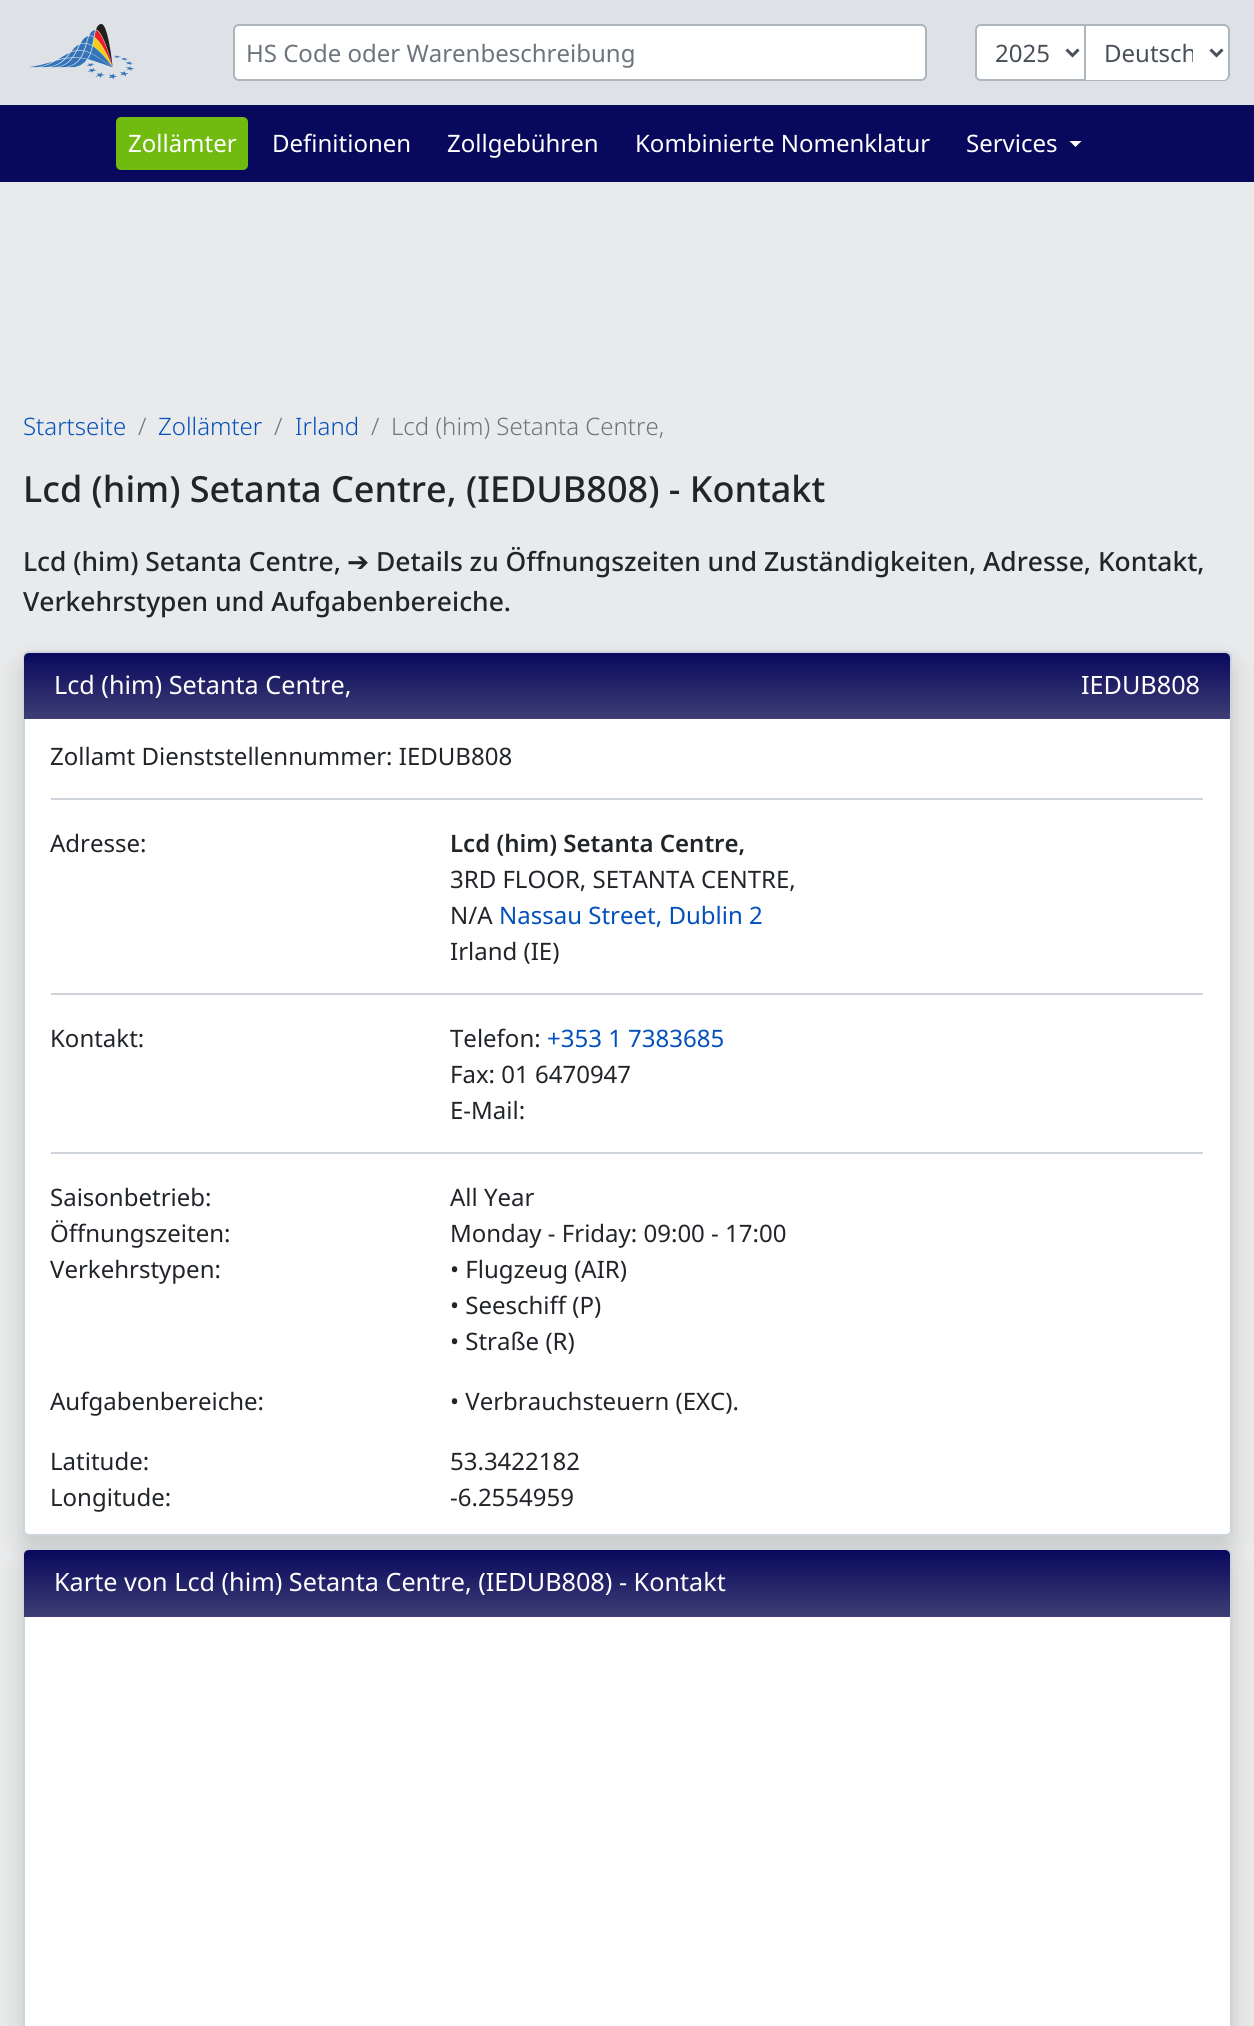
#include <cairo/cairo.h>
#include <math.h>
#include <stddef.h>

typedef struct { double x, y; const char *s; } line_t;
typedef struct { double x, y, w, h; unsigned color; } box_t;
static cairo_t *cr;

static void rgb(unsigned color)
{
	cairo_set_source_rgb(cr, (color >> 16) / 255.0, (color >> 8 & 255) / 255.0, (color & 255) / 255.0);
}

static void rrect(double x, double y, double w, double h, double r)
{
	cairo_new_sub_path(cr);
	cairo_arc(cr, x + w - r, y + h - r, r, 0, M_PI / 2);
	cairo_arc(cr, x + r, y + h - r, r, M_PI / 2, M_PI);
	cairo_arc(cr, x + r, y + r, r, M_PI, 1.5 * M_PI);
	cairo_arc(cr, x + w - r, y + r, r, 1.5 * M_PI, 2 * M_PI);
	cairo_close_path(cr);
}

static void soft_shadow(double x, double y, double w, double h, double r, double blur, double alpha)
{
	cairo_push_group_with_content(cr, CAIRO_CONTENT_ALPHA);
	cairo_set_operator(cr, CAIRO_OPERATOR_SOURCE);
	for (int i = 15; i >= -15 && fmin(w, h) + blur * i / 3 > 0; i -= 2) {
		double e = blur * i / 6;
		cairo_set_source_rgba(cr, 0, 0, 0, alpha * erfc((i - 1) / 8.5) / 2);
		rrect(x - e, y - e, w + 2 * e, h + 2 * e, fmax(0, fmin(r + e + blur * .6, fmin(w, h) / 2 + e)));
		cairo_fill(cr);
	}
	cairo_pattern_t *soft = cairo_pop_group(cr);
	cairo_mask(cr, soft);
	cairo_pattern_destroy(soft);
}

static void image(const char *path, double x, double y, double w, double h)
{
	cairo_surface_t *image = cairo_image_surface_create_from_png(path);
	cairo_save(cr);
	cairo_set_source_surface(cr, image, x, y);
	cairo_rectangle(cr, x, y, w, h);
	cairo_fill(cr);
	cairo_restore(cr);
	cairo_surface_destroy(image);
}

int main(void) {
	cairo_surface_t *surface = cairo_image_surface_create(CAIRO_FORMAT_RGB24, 1254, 2026);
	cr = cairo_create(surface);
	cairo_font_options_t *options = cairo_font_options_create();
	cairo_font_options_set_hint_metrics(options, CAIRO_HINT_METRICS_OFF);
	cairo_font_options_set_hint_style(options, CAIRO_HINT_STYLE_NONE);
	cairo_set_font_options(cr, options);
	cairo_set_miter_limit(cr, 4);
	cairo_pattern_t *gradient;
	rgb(0xdee2e6);
	cairo_paint(cr);
	image("img/1.png", 28, 24, 107, 56);
	rgb(0xffffff);
	rrect(234, 25, 692, 55, 5);
	cairo_fill_preserve(cr);
	rgb(0xadb5bd);
	cairo_stroke(cr);
	rgb(0xffffff);
	cairo_new_path(cr);
	cairo_move_to(cr, 981, 25);
	cairo_line_to(cr, 1085, 25);
	cairo_line_to(cr, 1085, 80);
	cairo_line_to(cr, 981, 80);
	cairo_curve_to(cr, 978, 80, 976, 78, 976, 75);
	cairo_line_to(cr, 976, 30);
	cairo_curve_to(cr, 976, 27, 978, 25, 981, 25);
	cairo_close_path(cr);
	cairo_fill_preserve(cr);
	rgb(0xadb5bd);
	cairo_stroke(cr);
	cairo_new_path(cr);
	cairo_move_to(cr, 1066.5, 49.5);
	cairo_line_to(cr, 1072.5, 55.5);
	cairo_line_to(cr, 1078.5, 49.5);
	rgb(0x495057);
	cairo_set_line_width(cr, 3);
	cairo_stroke(cr);
	rgb(0xffffff);
	cairo_new_path(cr);
	cairo_move_to(cr, 1086, 26);
	cairo_line_to(cr, 1224, 26);
	cairo_curve_to(cr, 1227, 26, 1229, 28, 1229, 31);
	cairo_line_to(cr, 1229, 75);
	cairo_curve_to(cr, 1229, 78, 1227, 80, 1224, 80);
	cairo_line_to(cr, 1086, 80);
	cairo_close_path(cr);
	cairo_fill(cr);
	rgb(0xadb5bd);
	cairo_set_fill_rule(cr, CAIRO_FILL_RULE_EVEN_ODD);
	cairo_new_path(cr);
	cairo_move_to(cr, 1086, 24);
	cairo_line_to(cr, 1224, 24);
	cairo_curve_to(cr, 1227, 24, 1230, 27, 1230, 30);
	cairo_line_to(cr, 1230, 75);
	cairo_curve_to(cr, 1230, 78, 1227, 81, 1224, 81);
	cairo_line_to(cr, 1086, 81);
	cairo_close_path(cr);
	cairo_move_to(cr, 1086, 26);
	cairo_line_to(cr, 1224, 26);
	cairo_curve_to(cr, 1226, 26, 1228, 28, 1228, 30);
	cairo_line_to(cr, 1228, 75);
	cairo_curve_to(cr, 1228, 77, 1226, 80, 1224, 80);
	cairo_line_to(cr, 1086, 80);
	cairo_close_path(cr);
	cairo_fill(cr);
	cairo_new_path(cr);
	cairo_move_to(cr, 1210.5, 49.5);
	cairo_line_to(cr, 1216.5, 55.5);
	cairo_line_to(cr, 1222.5, 49.5);
	rgb(0x495057);
	cairo_stroke(cr);
	rgb(0x08085d);
	cairo_rectangle(cr, 0, 105, 1254, 77);
	cairo_fill(cr);
	rgb(0x71bb11);
	rrect(116, 117, 132, 53, 5);
	cairo_fill(cr);
	rgb(0xffffff);
	cairo_set_fill_rule(cr, CAIRO_FILL_RULE_WINDING);
	cairo_new_path(cr);
	cairo_move_to(cr, 1069.5, 141);
	cairo_line_to(cr, 1081.5, 141);
	cairo_line_to(cr, 1075.5, 147);
	cairo_close_path(cr);
	cairo_fill(cr);
	rgb(0xe9eaeb);
	cairo_rectangle(cr, 0, 182, 1254, 1844);
	cairo_fill(cr);
	rgb(0x000000);
	soft_shadow(23, 663, 1209, 885, 6, 12, 0.15);
	rgb(0xffffff);
	rrect(24, 652, 1207, 883, 5);
	cairo_fill_preserve(cr);
	rgb(0xced4da);
	cairo_set_line_width(cr, 2);
	cairo_stroke(cr);
	gradient = cairo_pattern_create_linear(627, 652, 627, 719);
	cairo_pattern_add_color_stop_rgba(gradient, 0, 0.031, 0.031, 0.365, 1);
	cairo_pattern_add_color_stop_rgba(gradient, 1, 0.243, 0.243, 0.459, 1);
	cairo_set_source(cr, gradient);
	cairo_pattern_destroy(gradient);
	cairo_new_path(cr);
	cairo_move_to(cr, 29, 653);
	cairo_line_to(cr, 1225, 653);
	cairo_curve_to(cr, 1228, 653, 1230, 655, 1230, 658);
	cairo_line_to(cr, 1230, 719);
	cairo_line_to(cr, 24, 719);
	cairo_line_to(cr, 24, 658);
	cairo_curve_to(cr, 24, 655, 26, 653, 29, 653);
	cairo_close_path(cr);
	cairo_fill(cr);
	{
		static const box_t items[] = {
			{51, 798, 1152, 2, 0xced4da},
			{51, 993, 1152, 2, 0xced4da},
			{51, 1152, 1152, 2, 0xced4da},
		};
		for (size_t i = 0; i < sizeof items / sizeof *items; i++) {
			rgb(items[i].color);
			cairo_rectangle(cr, items[i].x, items[i].y, items[i].w, items[i].h);
			cairo_fill(cr);
		}
	}
	rgb(0x000000);
	soft_shadow(23, 1560, 1209, 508, 6, 12, 0.15);
	rgb(0xffffff);
	rrect(24, 1549, 1207, 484, 5);
	cairo_fill_preserve(cr);
	rgb(0xced4da);
	cairo_stroke(cr);
	gradient = cairo_pattern_create_linear(627, 1550, 627, 1617);
	cairo_pattern_add_color_stop_rgba(gradient, 0, 0.031, 0.031, 0.365, 1);
	cairo_pattern_add_color_stop_rgba(gradient, 1, 0.243, 0.243, 0.459, 1);
	cairo_set_source(cr, gradient);
	cairo_pattern_destroy(gradient);
	cairo_new_path(cr);
	cairo_move_to(cr, 29, 1550);
	cairo_line_to(cr, 1225, 1550);
	cairo_curve_to(cr, 1228, 1550, 1230, 1552, 1230, 1555);
	cairo_line_to(cr, 1230, 1617);
	cairo_line_to(cr, 24, 1617);
	cairo_line_to(cr, 24, 1555);
	cairo_curve_to(cr, 24, 1552, 26, 1550, 29, 1550);
	cairo_close_path(cr);
	cairo_fill(cr);
	cairo_select_font_face(cr, "Noto Sans", CAIRO_FONT_SLANT_NORMAL, CAIRO_FONT_WEIGHT_NORMAL);
	cairo_set_font_size(cr, 24);
	rgb(0x6c757d);
	cairo_move_to(cr, 246, 62);
	cairo_show_text(cr, "HS Code oder Warenbeschreibung");
	rgb(0x495057);
	cairo_move_to(cr, 995, 62);
	cairo_show_text(cr, "2025");
	cairo_save(cr);
	cairo_rectangle(cr, 1104, 35, 89, 36);
	cairo_clip(cr);
	cairo_move_to(cr, 1104, 62);
	cairo_show_text(cr, "Deutsch");
	cairo_restore(cr);
	rgb(0xffffff);
	{
		static const line_t items[] = {
			{128, 152, "Zollämter"},
			{272, 152, "Definitionen"},
			{447, 152, "Zollgebühren"},
			{635, 152, "Kombinierte Nomenklatur"},
			{966, 152, "Services"},
		};
		for (size_t i = 0; i < sizeof items / sizeof *items; i++) {
			cairo_move_to(cr, items[i].x, items[i].y);
			cairo_show_text(cr, items[i].s);
		}
	}
	cairo_select_font_face(cr, "Noto Sans Light", CAIRO_FONT_SLANT_NORMAL, CAIRO_FONT_WEIGHT_NORMAL);
	rgb(0x0250bb);
	cairo_move_to(cr, 23, 435);
	cairo_show_text(cr, "Startseite");
	rgb(0x6c757d);
	cairo_move_to(cr, 138, 435);
	cairo_show_text(cr, "/");
	rgb(0x0250bb);
	cairo_move_to(cr, 158, 435);
	cairo_show_text(cr, "Zollämter");
	rgb(0x6c757d);
	cairo_move_to(cr, 274, 435);
	cairo_show_text(cr, "/");
	rgb(0x0250bb);
	cairo_move_to(cr, 295, 435);
	cairo_show_text(cr, "Irland");
	rgb(0x6c757d);
	cairo_move_to(cr, 371, 435);
	cairo_show_text(cr, "/");
	cairo_move_to(cr, 391, 435);
	cairo_show_text(cr, "Lcd (him) Setanta Centre,");
	cairo_select_font_face(cr, "Noto Sans Medium", CAIRO_FONT_SLANT_NORMAL, CAIRO_FONT_WEIGHT_NORMAL);
	cairo_set_font_size(cr, 36);
	rgb(0x212529);
	cairo_move_to(cr, 23, 502);
	cairo_show_text(cr, "Lcd (him) Setanta Centre, (IEDUB808) - Kontakt");
	cairo_set_font_size(cr, 26.4);
	cairo_move_to(cr, 23, 571);
	cairo_show_text(cr, "Lcd (him) Setanta Centre,");
	cairo_select_font_face(cr, "DejaVu Sans", CAIRO_FONT_SLANT_NORMAL, CAIRO_FONT_WEIGHT_NORMAL);
	cairo_move_to(cr, 347, 571);
	cairo_show_text(cr, "➔");
	cairo_select_font_face(cr, "Noto Sans Medium", CAIRO_FONT_SLANT_NORMAL, CAIRO_FONT_WEIGHT_NORMAL);
	cairo_move_to(cr, 376, 571);
	cairo_show_text(cr, "Details zu Öffnungszeiten und Zuständigkeiten, Adresse, Kontakt,");
	cairo_move_to(cr, 23, 611);
	cairo_show_text(cr, "Verkehrstypen und Aufgabenbereiche.");
	cairo_select_font_face(cr, "Noto Sans", CAIRO_FONT_SLANT_NORMAL, CAIRO_FONT_WEIGHT_NORMAL);
	cairo_set_font_size(cr, 25.2);
	rgb(0xffffff);
	cairo_move_to(cr, 54, 694);
	cairo_show_text(cr, "Lcd (him) Setanta Centre,");
	cairo_move_to(cr, 1081, 694);
	cairo_show_text(cr, "IEDUB808");
	cairo_set_font_size(cr, 24);
	rgb(0x212529);
	cairo_move_to(cr, 50, 765);
	cairo_show_text(cr, "Zollamt Dienststellennummer: IEDUB808");
	cairo_move_to(cr, 50, 852);
	cairo_show_text(cr, "Adresse:");
	cairo_select_font_face(cr, "Noto Sans SemiBold", CAIRO_FONT_SLANT_NORMAL, CAIRO_FONT_WEIGHT_NORMAL);
	cairo_move_to(cr, 450, 852);
	cairo_show_text(cr, "Lcd (him) Setanta Centre,");
	cairo_select_font_face(cr, "Noto Sans", CAIRO_FONT_SLANT_NORMAL, CAIRO_FONT_WEIGHT_NORMAL);
	cairo_move_to(cr, 450, 888);
	cairo_show_text(cr, "3RD FLOOR, SETANTA CENTRE,");
	cairo_move_to(cr, 450, 924);
	cairo_show_text(cr, "N/A");
	rgb(0x0250bb);
	cairo_move_to(cr, 499, 924);
	cairo_show_text(cr, "Nassau Street, Dublin 2");
	rgb(0x212529);
	{
		static const line_t items[] = {
			{450, 960, "Irland (IE)"},
			{50, 1047, "Kontakt:"},
			{450, 1047, "Telefon:"},
		};
		for (size_t i = 0; i < sizeof items / sizeof *items; i++) {
			cairo_move_to(cr, items[i].x, items[i].y);
			cairo_show_text(cr, items[i].s);
		}
	}
	rgb(0x0250bb);
	cairo_move_to(cr, 547, 1047);
	cairo_show_text(cr, "+353 1 7383685");
	rgb(0x212529);
	{
		static const line_t items[] = {
			{450, 1083, "Fax: 01 6470947"},
			{450, 1119, "E-Mail:"},
			{50, 1206, "Saisonbetrieb:"},
			{450, 1206, "All Year"},
			{50, 1242, "Öffnungszeiten:"},
			{450, 1242, "Monday - Friday: 09:00 - 17:00"},
			{50, 1278, "Verkehrstypen:"},
			{450, 1278, "• Flugzeug (AIR)"},
			{450, 1314, "• Seeschiff (P)"},
			{450, 1350, "• Straße (R)"},
			{50, 1410, "Aufgabenbereiche:"},
			{450, 1410, "• Verbrauchsteuern (EXC)."},
			{50, 1470, "Latitude:"},
			{50, 1506, "Longitude:"},
			{450, 1470, "53.3422182"},
			{450, 1506, "-6.2554959"},
		};
		for (size_t i = 0; i < sizeof items / sizeof *items; i++) {
			cairo_move_to(cr, items[i].x, items[i].y);
			cairo_show_text(cr, items[i].s);
		}
	}
	cairo_set_font_size(cr, 25.2);
	rgb(0xffffff);
	cairo_move_to(cr, 54, 1591);
	cairo_show_text(cr, "Karte von Lcd (him) Setanta Centre, (IEDUB808) - Kontakt");
	cairo_surface_write_to_png(surface, "page.png");
	cairo_font_options_destroy(options);
	cairo_destroy(cr);
	cairo_surface_destroy(surface);
	return 0;
}
